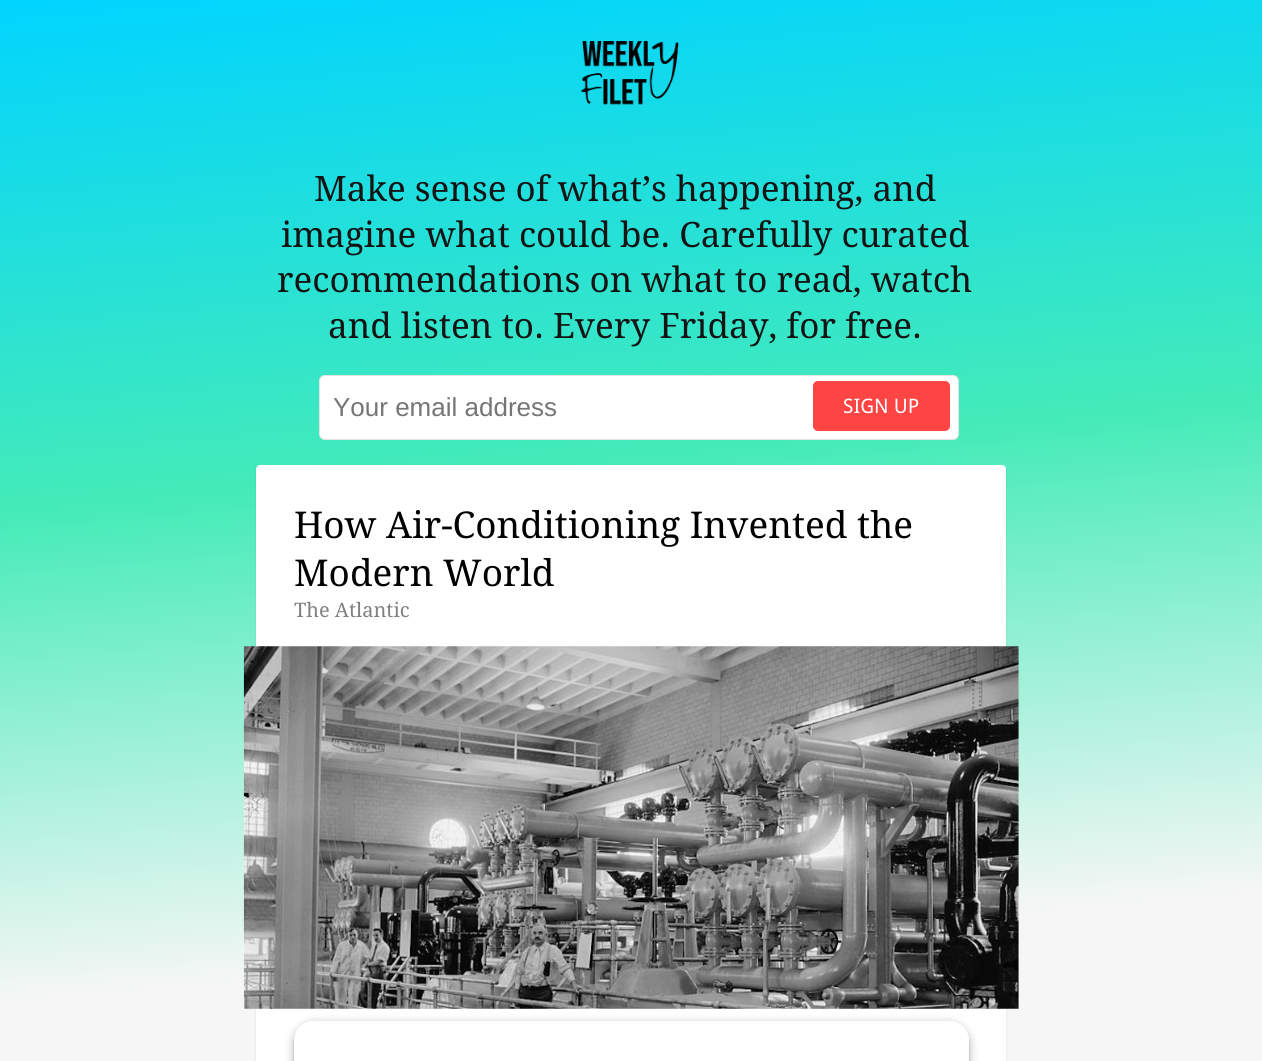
#include <cairo/cairo.h>
#include <math.h>
#include <stddef.h>

typedef struct { double x, y; const char *s; } line_t;
static cairo_t *cr;

static void rgb(unsigned color)
{
	cairo_set_source_rgb(cr, (color >> 16) / 255.0, (color >> 8 & 255) / 255.0, (color & 255) / 255.0);
}

static void rrect(double x, double y, double w, double h, double r)
{
	cairo_new_sub_path(cr);
	cairo_arc(cr, x + w - r, y + h - r, r, 0, M_PI / 2);
	cairo_arc(cr, x + r, y + h - r, r, M_PI / 2, M_PI);
	cairo_arc(cr, x + r, y + r, r, M_PI, 1.5 * M_PI);
	cairo_arc(cr, x + w - r, y + r, r, 1.5 * M_PI, 2 * M_PI);
	cairo_close_path(cr);
}

static void soft_shadow(double x, double y, double w, double h, double r, double blur, double alpha)
{
	cairo_push_group_with_content(cr, CAIRO_CONTENT_ALPHA);
	cairo_set_operator(cr, CAIRO_OPERATOR_SOURCE);
	for (int i = 15; i >= -15 && fmin(w, h) + blur * i / 3 > 0; i -= 2) {
		double e = blur * i / 6;
		cairo_set_source_rgba(cr, 0, 0, 0, alpha * erfc((i - 1) / 8.5) / 2);
		rrect(x - e, y - e, w + 2 * e, h + 2 * e, fmax(0, fmin(r + e + blur * .6, fmin(w, h) / 2 + e)));
		cairo_fill(cr);
	}
	cairo_pattern_t *soft = cairo_pop_group(cr);
	cairo_mask(cr, soft);
	cairo_pattern_destroy(soft);
}

static void image(const char *path, double x, double y, double w, double h)
{
	cairo_surface_t *image = cairo_image_surface_create_from_png(path);
	cairo_save(cr);
	cairo_set_source_surface(cr, image, x, y);
	cairo_rectangle(cr, x, y, w, h);
	cairo_fill(cr);
	cairo_restore(cr);
	cairo_surface_destroy(image);
}

int main(void) {
	cairo_surface_t *surface = cairo_image_surface_create(CAIRO_FORMAT_RGB24, 1262, 1061);
	cr = cairo_create(surface);
	cairo_font_options_t *options = cairo_font_options_create();
	cairo_font_options_set_hint_metrics(options, CAIRO_HINT_METRICS_OFF);
	cairo_font_options_set_hint_style(options, CAIRO_HINT_STYLE_NONE);
	cairo_set_font_options(cr, options);
	cairo_set_miter_limit(cr, 4);
	cairo_pattern_t *gradient;
	rgb(0xffffff);
	cairo_paint(cr);
	gradient = cairo_pattern_create_linear(546, -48, 717, 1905);
	cairo_pattern_add_color_stop_rgba(gradient, 0, 0, 0.831, 1, 1);
	cairo_pattern_add_color_stop_rgba(gradient, 0.26, 0.267, 0.922, 0.722, 1);
	cairo_pattern_add_color_stop_rgba(gradient, 0.51, 0.965, 0.965, 0.965, 1);
	cairo_set_source(cr, gradient);
	cairo_pattern_destroy(gradient);
	cairo_rectangle(cr, 0, 0, 1262, 1061);
	cairo_fill(cr);
	image("img/1.png", 581, 41, 98, 64);
	rgb(0xffffff);
	rrect(319.5, 375.5, 639, 64, 5.5);
	cairo_fill_preserve(cr);
	rgb(0xe3e3e3);
	cairo_set_line_width(cr, 1);
	cairo_stroke(cr);
	rgb(0xff4444);
	rrect(813, 381, 137, 50, 5);
	cairo_fill(cr);
	rgb(0x000000);
	soft_shadow(256, 466, 750, 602, 4, 1, 0.1);
	rgb(0xffffff);
	rrect(256, 465, 750, 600, 4);
	cairo_fill(cr);
	image("img/2.png", 243, 646, 776, 363);
	cairo_save(cr);
	cairo_set_fill_rule(cr, CAIRO_FILL_RULE_EVEN_ODD);
	cairo_new_path(cr);
	cairo_move_to(cr, 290, 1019);
	cairo_line_to(cr, 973, 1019);
	cairo_line_to(cr, 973, 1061);
	cairo_line_to(cr, 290, 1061);
	cairo_close_path(cr);
	cairo_move_to(cr, 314, 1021);
	cairo_line_to(cr, 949, 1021);
	cairo_curve_to(cr, 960, 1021, 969, 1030, 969, 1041);
	cairo_line_to(cr, 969, 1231);
	cairo_curve_to(cr, 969, 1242, 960, 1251, 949, 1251);
	cairo_line_to(cr, 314, 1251);
	cairo_curve_to(cr, 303, 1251, 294, 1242, 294, 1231);
	cairo_line_to(cr, 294, 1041);
	cairo_curve_to(cr, 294, 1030, 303, 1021, 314, 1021);
	cairo_close_path(cr);
	cairo_clip(cr);
	rgb(0x000000);
	soft_shadow(294, 1023, 675, 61, 20, 1, 0.2);
	cairo_restore(cr);
	cairo_save(cr);
	cairo_set_fill_rule(cr, CAIRO_FILL_RULE_EVEN_ODD);
	cairo_new_path(cr);
	cairo_move_to(cr, 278, 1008);
	cairo_line_to(cr, 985, 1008);
	cairo_line_to(cr, 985, 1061);
	cairo_line_to(cr, 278, 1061);
	cairo_close_path(cr);
	cairo_move_to(cr, 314, 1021);
	cairo_line_to(cr, 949, 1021);
	cairo_curve_to(cr, 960, 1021, 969, 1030, 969, 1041);
	cairo_line_to(cr, 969, 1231);
	cairo_curve_to(cr, 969, 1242, 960, 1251, 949, 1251);
	cairo_line_to(cr, 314, 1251);
	cairo_curve_to(cr, 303, 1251, 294, 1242, 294, 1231);
	cairo_line_to(cr, 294, 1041);
	cairo_curve_to(cr, 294, 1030, 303, 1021, 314, 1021);
	cairo_close_path(cr);
	cairo_clip(cr);
	rgb(0x000000);
	soft_shadow(294, 1024, 675, 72, 20, 5, 0.3);
	cairo_restore(cr);
	cairo_set_source_rgba(cr, 1, 1, 1, 0.93);
	rrect(294, 1021, 675, 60, 20);
	cairo_fill(cr);
	cairo_select_font_face(cr, "Droid Serif", CAIRO_FONT_SLANT_NORMAL, CAIRO_FONT_WEIGHT_NORMAL);
	cairo_set_font_size(cr, 35);
	rgb(0x141414);
	{
		static const line_t items[] = {
			{314, 201, "Make sense of what’s happening, and"},
			{281, 247, "imagine what could be. Carefully curated"},
			{277, 292, "recommendations on what to read, watch"},
			{328, 338, "and listen to. Every Friday, for free."},
		};
		for (size_t i = 0; i < sizeof items / sizeof *items; i++) {
			cairo_move_to(cr, items[i].x, items[i].y);
			cairo_show_text(cr, items[i].s);
		}
	}
	cairo_select_font_face(cr, "Liberation Sans", CAIRO_FONT_SLANT_NORMAL, CAIRO_FONT_WEIGHT_NORMAL);
	cairo_set_font_size(cr, 26);
	rgb(0x757575);
	cairo_move_to(cr, 333, 416);
	cairo_show_text(cr, "Your email address");
	cairo_select_font_face(cr, "Droid Sans", CAIRO_FONT_SLANT_NORMAL, CAIRO_FONT_WEIGHT_NORMAL);
	cairo_set_font_size(cr, 20);
	rgb(0xffffff);
	cairo_move_to(cr, 843, 413);
	cairo_show_text(cr, "SIGN UP");
	cairo_select_font_face(cr, "Droid Serif", CAIRO_FONT_SLANT_NORMAL, CAIRO_FONT_WEIGHT_NORMAL);
	cairo_set_font_size(cr, 36.9);
	rgb(0x000000);
	cairo_move_to(cr, 294, 538);
	cairo_show_text(cr, "How Air-Conditioning Invented the");
	cairo_move_to(cr, 294, 586);
	cairo_show_text(cr, "Modern World");
	cairo_set_font_size(cr, 20);
	rgb(0x808080);
	cairo_move_to(cr, 294, 617);
	cairo_show_text(cr, "The Atlantic");
	cairo_surface_write_to_png(surface, "page.png");
	cairo_font_options_destroy(options);
	cairo_destroy(cr);
	cairo_surface_destroy(surface);
	return 0;
}
